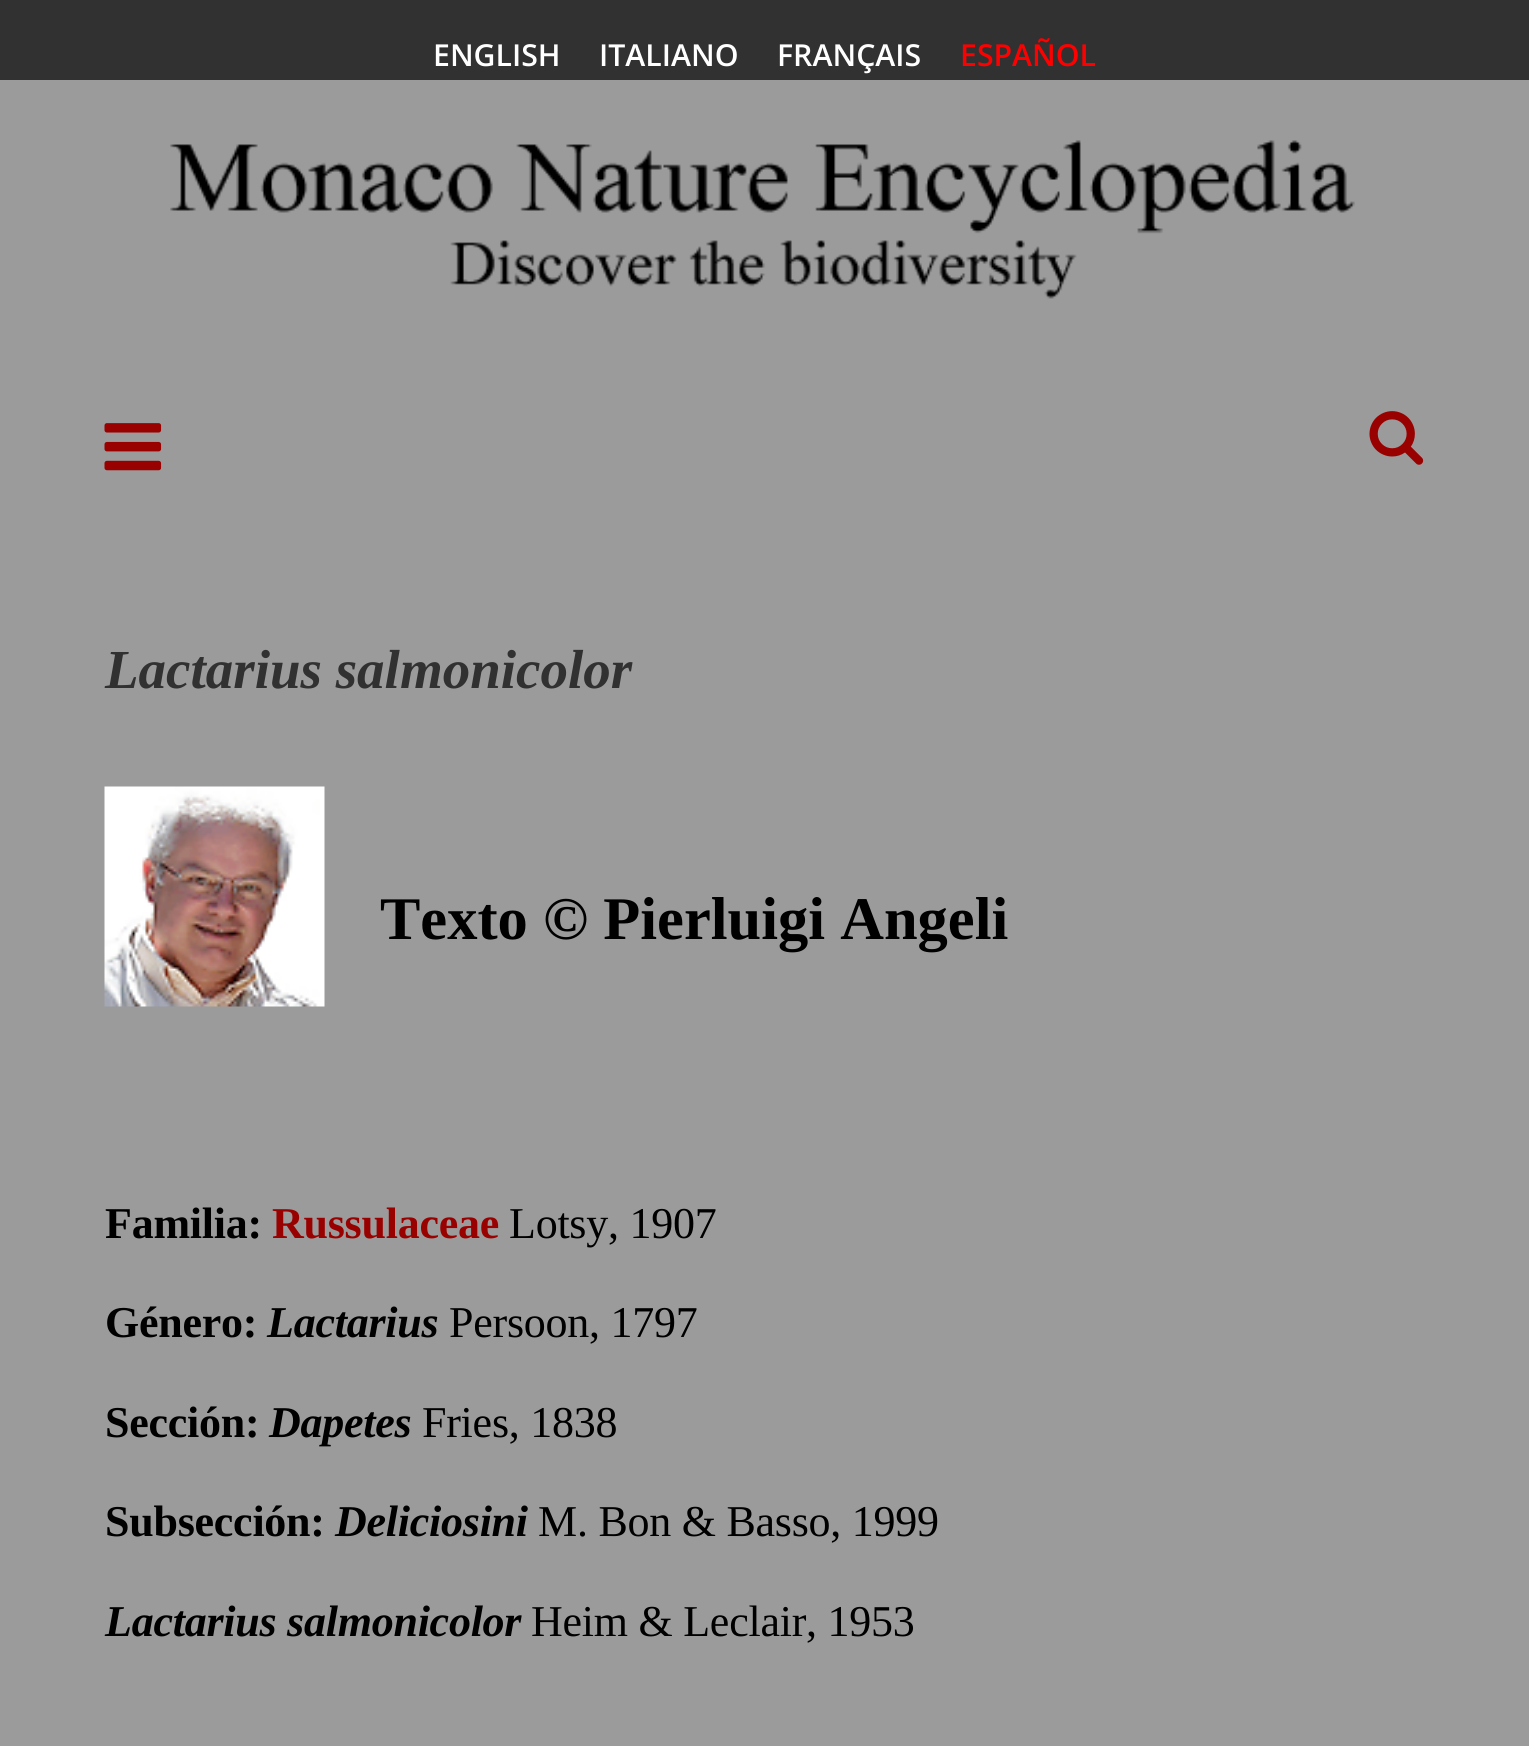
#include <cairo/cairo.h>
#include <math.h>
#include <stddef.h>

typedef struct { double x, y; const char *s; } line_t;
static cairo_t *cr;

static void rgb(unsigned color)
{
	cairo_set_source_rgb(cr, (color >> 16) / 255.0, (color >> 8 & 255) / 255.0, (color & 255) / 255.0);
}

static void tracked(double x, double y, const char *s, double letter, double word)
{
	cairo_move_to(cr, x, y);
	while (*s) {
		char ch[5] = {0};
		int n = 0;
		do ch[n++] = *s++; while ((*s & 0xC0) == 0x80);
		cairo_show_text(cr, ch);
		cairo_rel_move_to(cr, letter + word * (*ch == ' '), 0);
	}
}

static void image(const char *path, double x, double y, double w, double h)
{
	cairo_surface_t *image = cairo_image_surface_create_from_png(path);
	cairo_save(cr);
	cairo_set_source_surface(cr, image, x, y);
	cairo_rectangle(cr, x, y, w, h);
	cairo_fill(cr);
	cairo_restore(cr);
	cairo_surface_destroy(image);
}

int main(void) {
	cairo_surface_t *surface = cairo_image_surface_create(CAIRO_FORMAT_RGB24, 1529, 1746);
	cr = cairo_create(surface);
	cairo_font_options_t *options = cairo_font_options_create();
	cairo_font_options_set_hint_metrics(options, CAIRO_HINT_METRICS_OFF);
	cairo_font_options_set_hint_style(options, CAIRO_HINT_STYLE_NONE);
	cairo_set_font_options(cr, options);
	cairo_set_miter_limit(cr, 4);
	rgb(0x9b9b9b);
	cairo_paint(cr);
	rgb(0x313131);
	cairo_rectangle(cr, 0, 0, 1529, 80);
	cairo_fill(cr);
	image("img/1.png", 170, 140, 1185, 159);
	image("img/2.png", 104, 423, 58, 48);
	image("img/3.png", 1369, 411, 55, 54);
	image("img/4.png", 104, 786, 221, 221);
	cairo_select_font_face(cr, "Open Sans SemiBold", CAIRO_FONT_SLANT_NORMAL, CAIRO_FONT_WEIGHT_NORMAL);
	cairo_set_font_size(cr, 30.25);
	rgb(0xffffff);
	{
		static const line_t items[] = {
			{433, 66, "ENGLISH"},
			{599, 66, "ITALIANO"},
			{777, 66, "FRANÇAIS"},
		};
		for (size_t i = 0; i < sizeof items / sizeof *items; i++) {
			cairo_move_to(cr, items[i].x, items[i].y);
			cairo_show_text(cr, items[i].s);
		}
	}
	rgb(0xff0000);
	cairo_move_to(cr, 960, 66);
	cairo_show_text(cr, "ESPAÑOL");
	cairo_select_font_face(cr, "Liberation Serif", CAIRO_FONT_SLANT_ITALIC, CAIRO_FONT_WEIGHT_BOLD);
	cairo_set_font_size(cr, 55);
	rgb(0x313131);
	cairo_move_to(cr, 105, 688);
	cairo_show_text(cr, "Lactarius salmonicolor");
	cairo_select_font_face(cr, "Liberation Serif", CAIRO_FONT_SLANT_NORMAL, CAIRO_FONT_WEIGHT_BOLD);
	cairo_set_font_size(cr, 60.5);
	rgb(0x000000);
	cairo_move_to(cr, 380, 939);
	cairo_show_text(cr, "Texto © Pierluigi Angeli");
	cairo_set_font_size(cr, 44);
	tracked(105, 1238, "Familia:", -0.25, 0);
	rgb(0x990000);
	tracked(272, 1238, "Russulaceae", -0.25, 0);
	cairo_select_font_face(cr, "Liberation Serif", CAIRO_FONT_SLANT_NORMAL, CAIRO_FONT_WEIGHT_NORMAL);
	rgb(0x000000);
	tracked(509, 1238, "Lotsy, 1907", -0.25, 0);
	cairo_select_font_face(cr, "Liberation Serif", CAIRO_FONT_SLANT_NORMAL, CAIRO_FONT_WEIGHT_BOLD);
	tracked(105, 1337, "Género:", -0.25, 0);
	cairo_select_font_face(cr, "Liberation Serif", CAIRO_FONT_SLANT_ITALIC, CAIRO_FONT_WEIGHT_BOLD);
	tracked(267, 1337, "Lactarius", -0.25, 0);
	cairo_select_font_face(cr, "Liberation Serif", CAIRO_FONT_SLANT_NORMAL, CAIRO_FONT_WEIGHT_NORMAL);
	tracked(449, 1337, "Persoon, 1797", -0.25, 0);
	cairo_select_font_face(cr, "Liberation Serif", CAIRO_FONT_SLANT_NORMAL, CAIRO_FONT_WEIGHT_BOLD);
	tracked(105, 1437, "Sección:", -0.25, 0);
	cairo_select_font_face(cr, "Liberation Serif", CAIRO_FONT_SLANT_ITALIC, CAIRO_FONT_WEIGHT_BOLD);
	tracked(269, 1437, "Dapetes", -0.25, 0);
	cairo_select_font_face(cr, "Liberation Serif", CAIRO_FONT_SLANT_NORMAL, CAIRO_FONT_WEIGHT_NORMAL);
	tracked(422, 1437, "Fries, 1838", -0.25, 0);
	cairo_select_font_face(cr, "Liberation Serif", CAIRO_FONT_SLANT_NORMAL, CAIRO_FONT_WEIGHT_BOLD);
	tracked(105, 1536, "Subsección:", -0.25, 0);
	cairo_select_font_face(cr, "Liberation Serif", CAIRO_FONT_SLANT_ITALIC, CAIRO_FONT_WEIGHT_BOLD);
	tracked(335, 1536, "Deliciosini", -0.25, 0);
	cairo_select_font_face(cr, "Liberation Serif", CAIRO_FONT_SLANT_NORMAL, CAIRO_FONT_WEIGHT_NORMAL);
	tracked(538, 1536, "M. Bon & Basso, 1999", -0.25, 0);
	cairo_select_font_face(cr, "Liberation Serif", CAIRO_FONT_SLANT_ITALIC, CAIRO_FONT_WEIGHT_BOLD);
	tracked(105, 1636, "Lactarius salmonicolor", -0.25, 0);
	cairo_select_font_face(cr, "Liberation Serif", CAIRO_FONT_SLANT_NORMAL, CAIRO_FONT_WEIGHT_NORMAL);
	tracked(531, 1636, "Heim & Leclair, 1953", -0.25, 0);
	cairo_surface_write_to_png(surface, "page.png");
	cairo_font_options_destroy(options);
	cairo_destroy(cr);
	cairo_surface_destroy(surface);
	return 0;
}
